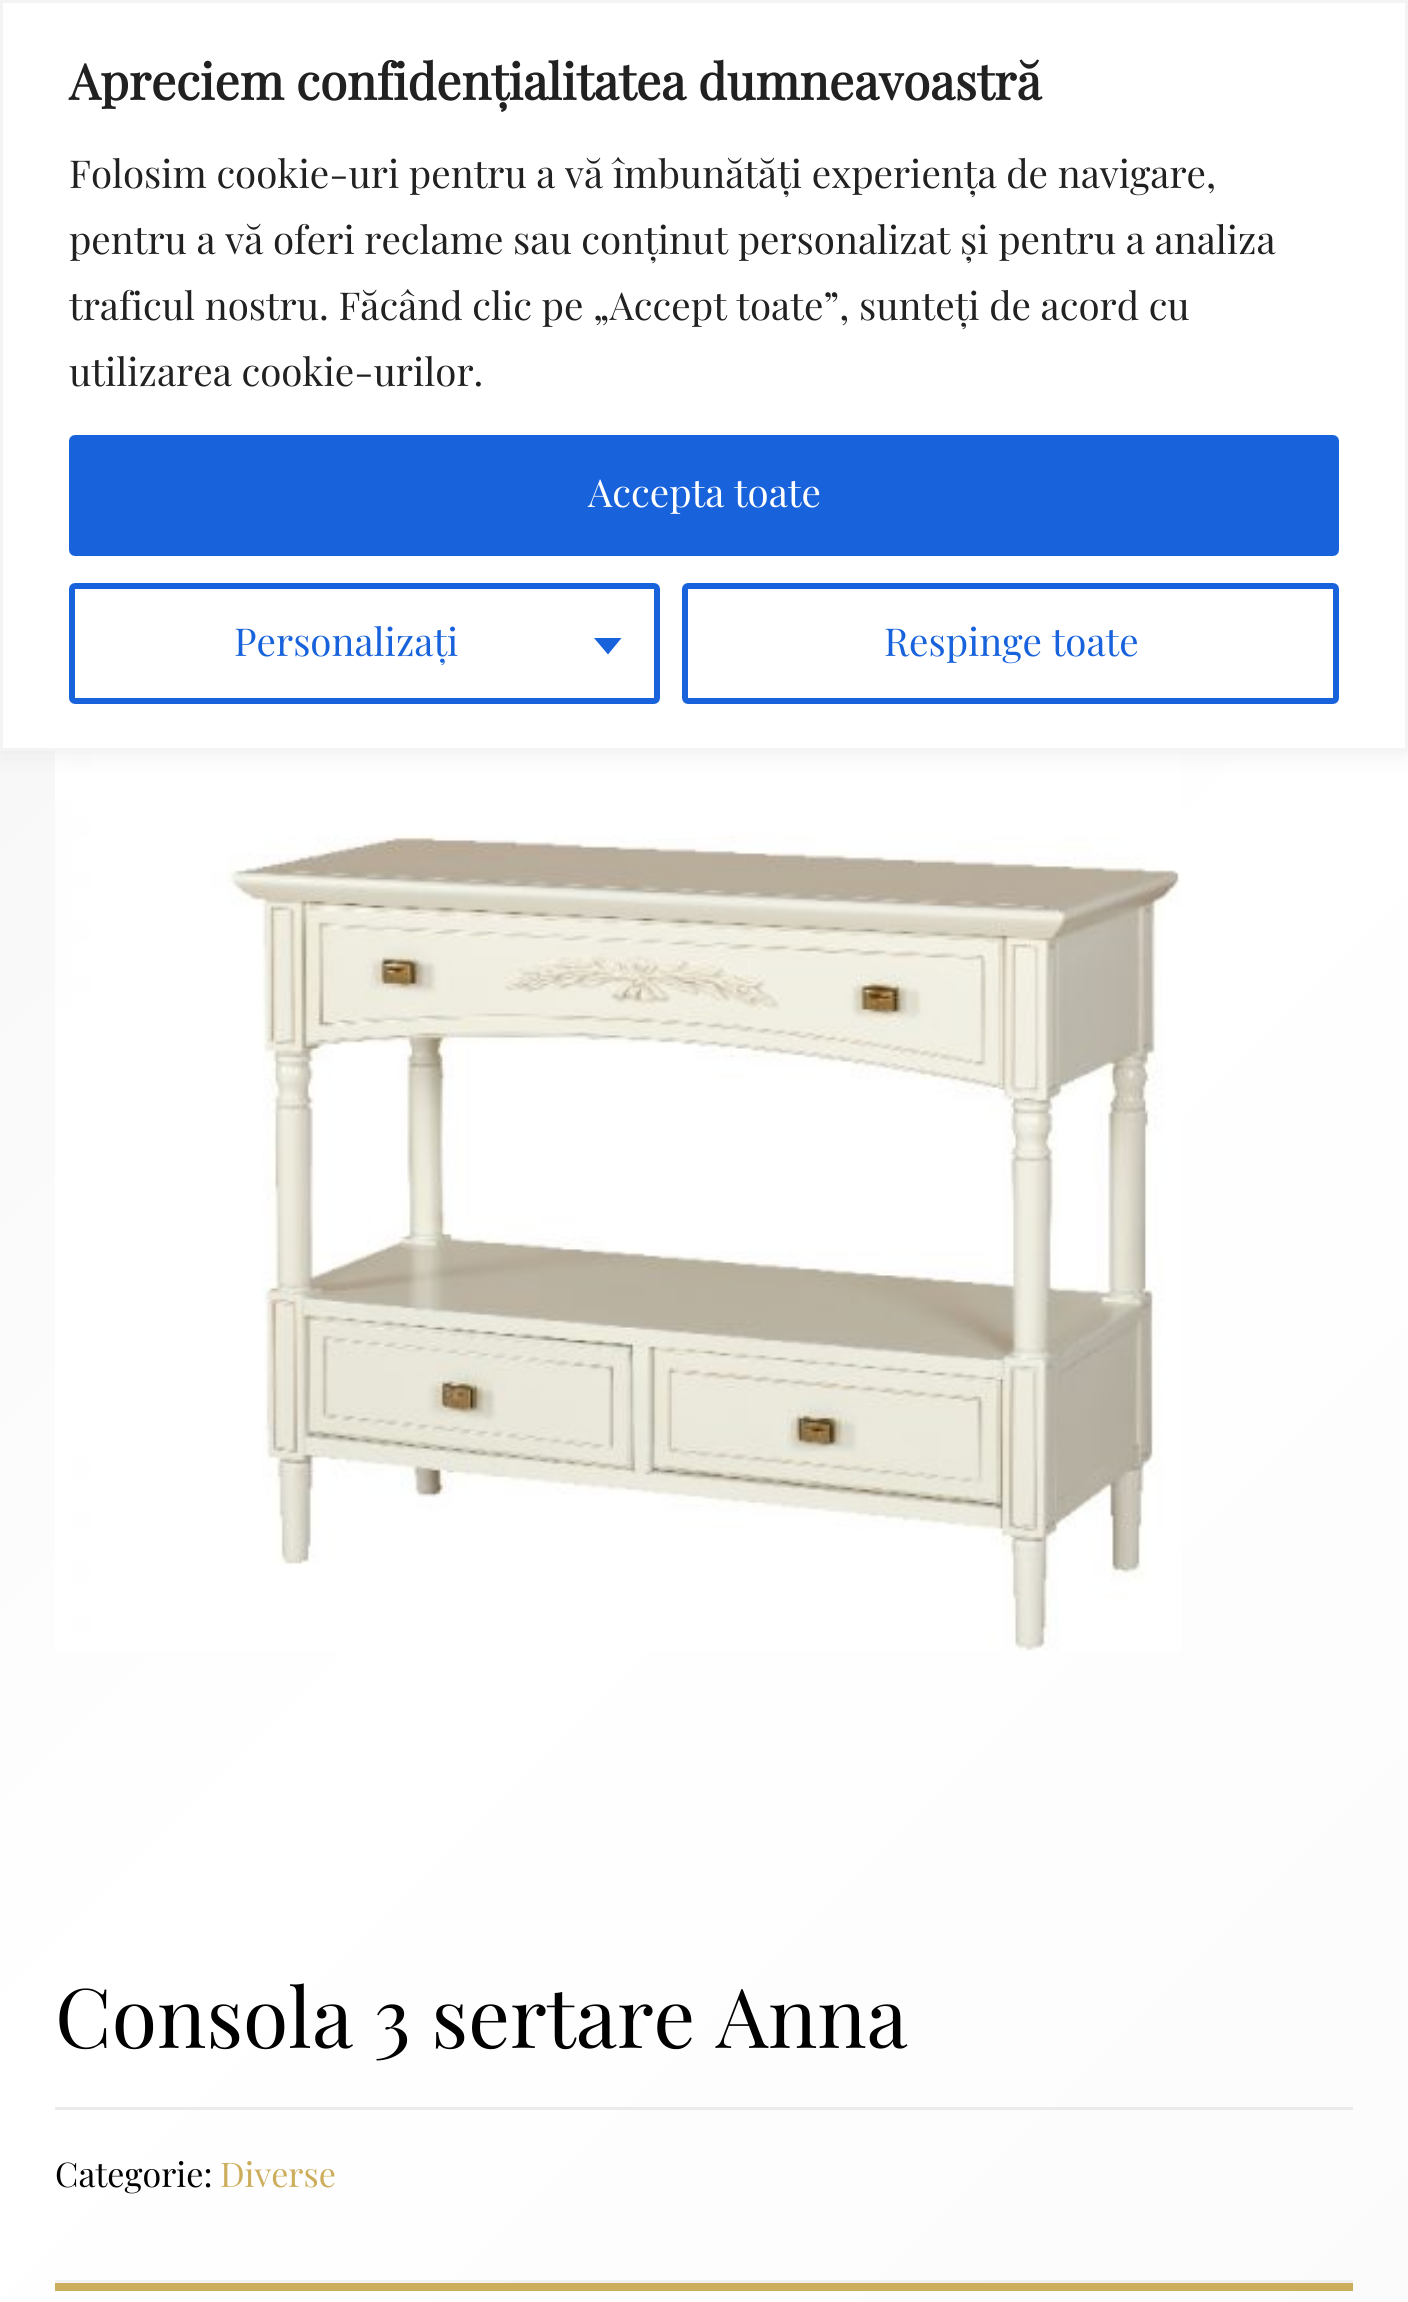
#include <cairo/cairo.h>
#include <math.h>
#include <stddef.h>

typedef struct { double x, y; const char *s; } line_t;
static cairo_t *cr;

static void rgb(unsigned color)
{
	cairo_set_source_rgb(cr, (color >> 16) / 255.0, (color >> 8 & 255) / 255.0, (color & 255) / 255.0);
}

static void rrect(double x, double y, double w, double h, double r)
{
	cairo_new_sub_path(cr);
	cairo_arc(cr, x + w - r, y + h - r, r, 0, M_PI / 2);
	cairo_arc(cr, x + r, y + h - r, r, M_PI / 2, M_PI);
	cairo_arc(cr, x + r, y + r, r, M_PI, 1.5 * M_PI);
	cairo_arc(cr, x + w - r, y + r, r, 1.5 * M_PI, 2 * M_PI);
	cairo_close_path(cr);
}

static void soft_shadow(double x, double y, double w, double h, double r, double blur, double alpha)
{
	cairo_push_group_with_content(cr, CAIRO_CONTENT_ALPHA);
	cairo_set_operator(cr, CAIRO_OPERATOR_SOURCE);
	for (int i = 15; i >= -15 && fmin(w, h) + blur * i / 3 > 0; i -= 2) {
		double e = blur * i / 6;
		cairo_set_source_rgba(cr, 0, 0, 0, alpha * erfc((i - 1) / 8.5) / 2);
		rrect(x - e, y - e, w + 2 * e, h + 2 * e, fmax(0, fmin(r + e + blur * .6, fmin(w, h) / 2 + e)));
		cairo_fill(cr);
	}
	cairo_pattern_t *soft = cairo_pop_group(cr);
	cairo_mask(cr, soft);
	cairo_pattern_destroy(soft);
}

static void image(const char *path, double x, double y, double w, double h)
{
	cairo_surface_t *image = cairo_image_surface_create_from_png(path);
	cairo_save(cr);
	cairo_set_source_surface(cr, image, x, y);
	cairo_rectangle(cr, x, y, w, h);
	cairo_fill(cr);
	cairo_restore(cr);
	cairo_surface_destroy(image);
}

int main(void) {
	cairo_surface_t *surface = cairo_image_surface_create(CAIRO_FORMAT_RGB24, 1408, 2302);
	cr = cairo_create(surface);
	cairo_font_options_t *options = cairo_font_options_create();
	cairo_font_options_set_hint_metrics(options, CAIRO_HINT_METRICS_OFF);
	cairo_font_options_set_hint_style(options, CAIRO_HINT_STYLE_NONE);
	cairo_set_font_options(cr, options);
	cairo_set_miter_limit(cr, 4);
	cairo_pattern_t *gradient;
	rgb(0xffffff);
	cairo_paint(cr);
	gradient = cairo_pattern_create_linear(-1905, 1905, 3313, 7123);
	cairo_pattern_add_color_stop_rgba(gradient, 0, 0.957, 0.957, 0.957, 1);
	cairo_pattern_add_color_stop_rgba(gradient, 0.2, 1, 1, 1, 1);
	cairo_pattern_add_color_stop_rgba(gradient, 0.65, 0.957, 0.957, 0.957, 1);
	cairo_pattern_add_color_stop_rgba(gradient, 1, 1, 1, 1, 1);
	cairo_set_source(cr, gradient);
	cairo_pattern_destroy(gradient);
	cairo_rectangle(cr, 0, 751, 1408, 1551);
	cairo_fill(cr);
	gradient = cairo_pattern_create_linear(-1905, 1905, 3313, 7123);
	cairo_pattern_add_color_stop_rgba(gradient, 0, 0.91, 0.91, 0.91, 1);
	cairo_pattern_add_color_stop_rgba(gradient, 0.2, 0.949, 0.949, 0.949, 1);
	cairo_pattern_add_color_stop_rgba(gradient, 0.65, 0.91, 0.91, 0.91, 1);
	cairo_pattern_add_color_stop_rgba(gradient, 1, 0.949, 0.949, 0.949, 1);
	cairo_set_source(cr, gradient);
	cairo_pattern_destroy(gradient);
	cairo_rectangle(cr, 55, 2280, 1298, 3);
	cairo_fill(cr);
	image("img/1.png", 55, 751, 1126, 900);
	rgb(0xacabab);
	soft_shadow(0, -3, 1408, 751, 0, 14, 0.3);
	rgb(0xffffff);
	cairo_rectangle(cr, 1.5, 1.5, 1405, 748);
	cairo_fill_preserve(cr);
	rgb(0xf4f4f4);
	cairo_set_line_width(cr, 3);
	cairo_stroke(cr);
	rgb(0x1863dc);
	rrect(72, 438, 1264, 115, 3);
	cairo_fill_preserve(cr);
	cairo_set_line_width(cr, 6);
	cairo_stroke(cr);
	rrect(72, 586, 585, 115, 3);
	cairo_stroke(cr);
	cairo_new_path(cr);
	cairo_move_to(cr, 594, 638);
	cairo_line_to(cr, 621.5, 638);
	cairo_line_to(cr, 608, 654.5);
	cairo_close_path(cr);
	cairo_fill(cr);
	rrect(685, 586, 651, 115, 3);
	cairo_stroke(cr);
	rgb(0xebebeb);
	cairo_rectangle(cr, 55, 2107, 1298, 3);
	cairo_fill(cr);
	rgb(0xccad5c);
	cairo_rectangle(cr, 55, 2283, 1298, 8);
	cairo_fill(cr);
	cairo_select_font_face(cr, "Playfair Display", CAIRO_FONT_SLANT_NORMAL, CAIRO_FONT_WEIGHT_BOLD);
	cairo_set_font_size(cr, 49.5);
	rgb(0x212121);
	cairo_move_to(cr, 69, 100);
	cairo_show_text(cr, "Apreciem confidențialitatea dumneavoastră");
	cairo_select_font_face(cr, "Playfair Display", CAIRO_FONT_SLANT_NORMAL, CAIRO_FONT_WEIGHT_NORMAL);
	cairo_set_font_size(cr, 38.5);
	{
		static const line_t items[] = {
			{69, 188, "Folosim cookie-uri pentru a vă îmbunătăți experiența de navigare,"},
			{69, 254, "pentru a vă oferi reclame sau conținut personalizat și pentru a analiza"},
			{69, 320, "traficul nostru. Făcând clic pe „Accept toate”, sunteți de acord cu"},
			{69, 386, "utilizarea cookie-urilor."},
		};
		for (size_t i = 0; i < sizeof items / sizeof *items; i++) {
			cairo_move_to(cr, items[i].x, items[i].y);
			cairo_show_text(cr, items[i].s);
		}
	}
	rgb(0xffffff);
	cairo_move_to(cr, 588, 507);
	cairo_show_text(cr, "Accepta toate");
	rgb(0x1863dc);
	cairo_move_to(cr, 234, 656);
	cairo_show_text(cr, "Personalizați");
	cairo_move_to(cr, 884, 656);
	cairo_show_text(cr, "Respinge toate");
	cairo_set_font_size(cr, 82.5);
	rgb(0x000000);
	cairo_move_to(cr, 55, 2048);
	cairo_show_text(cr, "Consola 3 sertare Anna");
	cairo_set_font_size(cr, 34);
	cairo_move_to(cr, 55, 2187);
	cairo_show_text(cr, "Categorie:");
	rgb(0xccad5c);
	cairo_move_to(cr, 220, 2187);
	cairo_show_text(cr, "Diverse");
	cairo_surface_write_to_png(surface, "page.png");
	cairo_font_options_destroy(options);
	cairo_destroy(cr);
	cairo_surface_destroy(surface);
	return 0;
}
